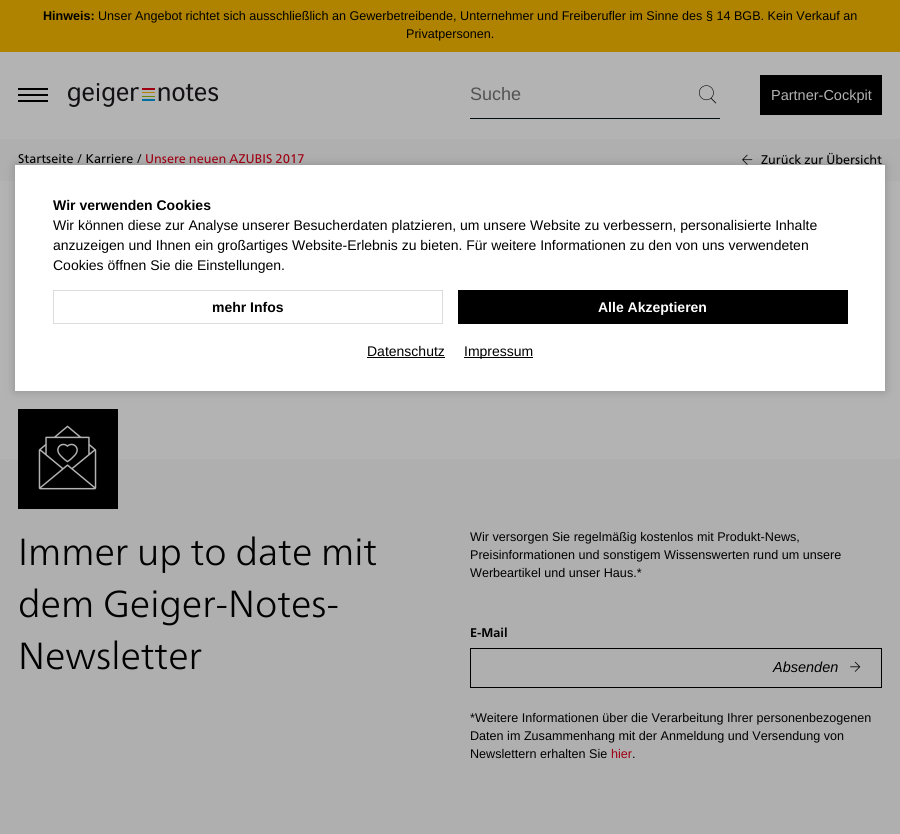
#include <cairo/cairo.h>
#include <math.h>
#include <stddef.h>

typedef struct { double x, y; const char *s; } line_t;
typedef struct { double x, y, w, h; unsigned color; } box_t;
static cairo_t *cr;

static void rgb(unsigned color)
{
	cairo_set_source_rgb(cr, (color >> 16) / 255.0, (color >> 8 & 255) / 255.0, (color & 255) / 255.0);
}

static void rrect(double x, double y, double w, double h, double r)
{
	cairo_new_sub_path(cr);
	cairo_arc(cr, x + w - r, y + h - r, r, 0, M_PI / 2);
	cairo_arc(cr, x + r, y + h - r, r, M_PI / 2, M_PI);
	cairo_arc(cr, x + r, y + r, r, M_PI, 1.5 * M_PI);
	cairo_arc(cr, x + w - r, y + r, r, 1.5 * M_PI, 2 * M_PI);
	cairo_close_path(cr);
}

static void soft_shadow(double x, double y, double w, double h, double r, double blur, double alpha)
{
	cairo_push_group_with_content(cr, CAIRO_CONTENT_ALPHA);
	cairo_set_operator(cr, CAIRO_OPERATOR_SOURCE);
	for (int i = 15; i >= -15 && fmin(w, h) + blur * i / 3 > 0; i -= 2) {
		double e = blur * i / 6;
		cairo_set_source_rgba(cr, 0, 0, 0, alpha * erfc((i - 1) / 8.5) / 2);
		rrect(x - e, y - e, w + 2 * e, h + 2 * e, fmax(0, fmin(r + e + blur * .6, fmin(w, h) / 2 + e)));
		cairo_fill(cr);
	}
	cairo_pattern_t *soft = cairo_pop_group(cr);
	cairo_mask(cr, soft);
	cairo_pattern_destroy(soft);
}

static void image(const char *path, double x, double y, double w, double h)
{
	cairo_surface_t *image = cairo_image_surface_create_from_png(path);
	cairo_save(cr);
	cairo_set_source_surface(cr, image, x, y);
	cairo_rectangle(cr, x, y, w, h);
	cairo_fill(cr);
	cairo_restore(cr);
	cairo_surface_destroy(image);
}

int main(void) {
	cairo_surface_t *surface = cairo_image_surface_create(CAIRO_FORMAT_RGB24, 900, 834);
	cr = cairo_create(surface);
	cairo_font_options_t *options = cairo_font_options_create();
	cairo_font_options_set_hint_metrics(options, CAIRO_HINT_METRICS_OFF);
	cairo_font_options_set_hint_style(options, CAIRO_HINT_STYLE_NONE);
	cairo_set_font_options(cr, options);
	cairo_set_miter_limit(cr, 4);
	rgb(0xb3b3b3);
	cairo_paint(cr);
	{
		static const box_t items[] = {
			{0, 0, 900, 52, 0xaf8300},
			{18, 88, 30, 2, 0x000000},
			{18, 94, 30, 2, 0x000000},
			{18, 100, 30, 2, 0x000000},
		};
		for (size_t i = 0; i < sizeof items / sizeof *items; i++) {
			rgb(items[i].color);
			cairo_rectangle(cr, items[i].x, items[i].y, items[i].w, items[i].h);
			cairo_fill(cr);
		}
	}
	image("img/1.png", 68, 83, 150, 24);
	rgb(0x000d15);
	cairo_rectangle(cr, 470, 118, 250, 1);
	cairo_fill(cr);
	image("img/2.png", 699, 85, 18, 19);
	rgb(0x000000);
	cairo_rectangle(cr, 760, 75, 122, 40);
	cairo_fill(cr);
	rgb(0xafafaf);
	cairo_rectangle(cr, 0, 139, 900, 42);
	cairo_fill(cr);
	image("img/3.png", 742, 154, 11, 11);
	cairo_rectangle(cr, 0, 459, 900, 375);
	cairo_fill(cr);
	rgb(0x000000);
	cairo_rectangle(cr, 18, 409, 100, 100);
	cairo_fill(cr);
	image("img/4.png", 38, 425, 59, 65);
	cairo_rectangle(cr, 470.5, 648.5, 411, 39);
	cairo_set_line_width(cr, 1);
	cairo_stroke(cr);
	image("img/5.png", 850, 661, 11, 11);
	rgb(0x000000);
	soft_shadow(15, 165, 870, 226, 0, 5, 0.2);
	rgb(0xffffff);
	cairo_rectangle(cr, 15, 165, 870, 226);
	cairo_fill(cr);
	cairo_rectangle(cr, 53.5, 290.5, 389, 33);
	rgb(0xd9dddd);
	cairo_stroke(cr);
	{
		static const box_t items[] = {
			{458, 290, 390, 34, 0x000000},
			{367, 357, 78, 1, 0x000000},
			{464, 357, 69, 1, 0x000000},
		};
		for (size_t i = 0; i < sizeof items / sizeof *items; i++) {
			rgb(items[i].color);
			cairo_rectangle(cr, items[i].x, items[i].y, items[i].w, items[i].h);
			cairo_fill(cr);
		}
	}
	cairo_select_font_face(cr, "Liberation Sans", CAIRO_FONT_SLANT_NORMAL, CAIRO_FONT_WEIGHT_BOLD);
	cairo_set_font_size(cr, 12.6);
	cairo_move_to(cr, 43, 20);
	cairo_show_text(cr, "Hinweis:");
	cairo_select_font_face(cr, "Liberation Sans", CAIRO_FONT_SLANT_NORMAL, CAIRO_FONT_WEIGHT_NORMAL);
	cairo_move_to(cr, 98, 20);
	cairo_show_text(cr, "Unser Angebot richtet sich ausschließlich an Gewerbetreibende, Unternehmer und Freiberufler im Sinne des § 14 BGB. Kein Verkauf an");
	cairo_move_to(cr, 406, 38);
	cairo_show_text(cr, "Privatpersonen.");
	cairo_set_font_size(cr, 18);
	rgb(0x525252);
	cairo_move_to(cr, 470, 100);
	cairo_show_text(cr, "Suche");
	cairo_set_font_size(cr, 14.5);
	rgb(0xb3b3b3);
	cairo_move_to(cr, 771, 100);
	cairo_show_text(cr, "Partner-Cockpit");
	cairo_select_font_face(cr, "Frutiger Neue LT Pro", CAIRO_FONT_SLANT_NORMAL, CAIRO_FONT_WEIGHT_NORMAL);
	cairo_set_font_size(cr, 12.6);
	rgb(0x000000);
	cairo_move_to(cr, 18, 163);
	cairo_show_text(cr, "Startseite / Karriere /");
	rgb(0x9e0012);
	cairo_move_to(cr, 145, 163);
	cairo_show_text(cr, "Unsere neuen AZUBIS 2017");
	rgb(0x000000);
	cairo_move_to(cr, 761, 164);
	cairo_show_text(cr, "Zurück zur Übersicht");
	cairo_select_font_face(cr, "Frutiger Neue LT Pro Light", CAIRO_FONT_SLANT_NORMAL, CAIRO_FONT_WEIGHT_NORMAL);
	cairo_set_font_size(cr, 37.75);
	{
		static const line_t items[] = {
			{18, 565, "Immer up to date mit"},
			{18, 617, "dem Geiger-Notes-"},
			{18, 669, "Newsletter"},
		};
		for (size_t i = 0; i < sizeof items / sizeof *items; i++) {
			cairo_move_to(cr, items[i].x, items[i].y);
			cairo_show_text(cr, items[i].s);
		}
	}
	cairo_select_font_face(cr, "Liberation Sans", CAIRO_FONT_SLANT_NORMAL, CAIRO_FONT_WEIGHT_NORMAL);
	cairo_set_font_size(cr, 12.6);
	{
		static const line_t items[] = {
			{470, 541, "Wir versorgen Sie regelmäßig kostenlos mit Produkt-News,"},
			{470, 559, "Preisinformationen und sonstigem Wissenswerten rund um unsere"},
			{470, 577, "Werbeartikel und unser Haus.*"},
		};
		for (size_t i = 0; i < sizeof items / sizeof *items; i++) {
			cairo_move_to(cr, items[i].x, items[i].y);
			cairo_show_text(cr, items[i].s);
		}
	}
	cairo_select_font_face(cr, "Frutiger Neue LT Pro", CAIRO_FONT_SLANT_NORMAL, CAIRO_FONT_WEIGHT_BOLD);
	cairo_move_to(cr, 470, 637);
	cairo_show_text(cr, "E-Mail");
	cairo_select_font_face(cr, "Liberation Sans", CAIRO_FONT_SLANT_ITALIC, CAIRO_FONT_WEIGHT_NORMAL);
	cairo_set_font_size(cr, 14.5);
	cairo_move_to(cr, 773, 672);
	cairo_show_text(cr, "Absenden");
	cairo_select_font_face(cr, "Liberation Sans", CAIRO_FONT_SLANT_NORMAL, CAIRO_FONT_WEIGHT_NORMAL);
	cairo_set_font_size(cr, 12.6);
	{
		static const line_t items[] = {
			{470, 722, "*Weitere Informationen über die Verarbeitung Ihrer personenbezogenen"},
			{470, 740, "Daten im Zusammenhang mit der Anmeldung und Versendung von"},
			{470, 758, "Newslettern erhalten Sie"},
		};
		for (size_t i = 0; i < sizeof items / sizeof *items; i++) {
			cairo_move_to(cr, items[i].x, items[i].y);
			cairo_show_text(cr, items[i].s);
		}
	}
	rgb(0x9e0012);
	cairo_move_to(cr, 611, 758);
	cairo_show_text(cr, "hier");
	rgb(0x000000);
	cairo_move_to(cr, 632, 758);
	cairo_show_text(cr, ".");
	cairo_select_font_face(cr, "Liberation Sans", CAIRO_FONT_SLANT_NORMAL, CAIRO_FONT_WEIGHT_BOLD);
	cairo_set_font_size(cr, 14);
	cairo_move_to(cr, 53, 210);
	cairo_show_text(cr, "Wir verwenden Cookies");
	cairo_select_font_face(cr, "Liberation Sans", CAIRO_FONT_SLANT_NORMAL, CAIRO_FONT_WEIGHT_NORMAL);
	{
		static const line_t items[] = {
			{53, 230, "Wir können diese zur Analyse unserer Besucherdaten platzieren, um unsere Website zu verbessern, personalisierte Inhalte"},
			{53, 250, "anzuzeigen und Ihnen ein großartiges Website-Erlebnis zu bieten. Für weitere Informationen zu den von uns verwendeten"},
			{53, 270, "Cookies öffnen Sie die Einstellungen."},
		};
		for (size_t i = 0; i < sizeof items / sizeof *items; i++) {
			cairo_move_to(cr, items[i].x, items[i].y);
			cairo_show_text(cr, items[i].s);
		}
	}
	cairo_select_font_face(cr, "Liberation Sans", CAIRO_FONT_SLANT_NORMAL, CAIRO_FONT_WEIGHT_BOLD);
	cairo_move_to(cr, 212, 312);
	cairo_show_text(cr, "mehr Infos");
	rgb(0xffffff);
	cairo_move_to(cr, 598, 312);
	cairo_show_text(cr, "Alle Akzeptieren");
	cairo_select_font_face(cr, "Liberation Sans", CAIRO_FONT_SLANT_NORMAL, CAIRO_FONT_WEIGHT_NORMAL);
	rgb(0x000000);
	cairo_move_to(cr, 367, 356);
	cairo_show_text(cr, "Datenschutz");
	cairo_move_to(cr, 464, 356);
	cairo_show_text(cr, "Impressum");
	cairo_surface_write_to_png(surface, "page.png");
	cairo_font_options_destroy(options);
	cairo_destroy(cr);
	cairo_surface_destroy(surface);
	return 0;
}
